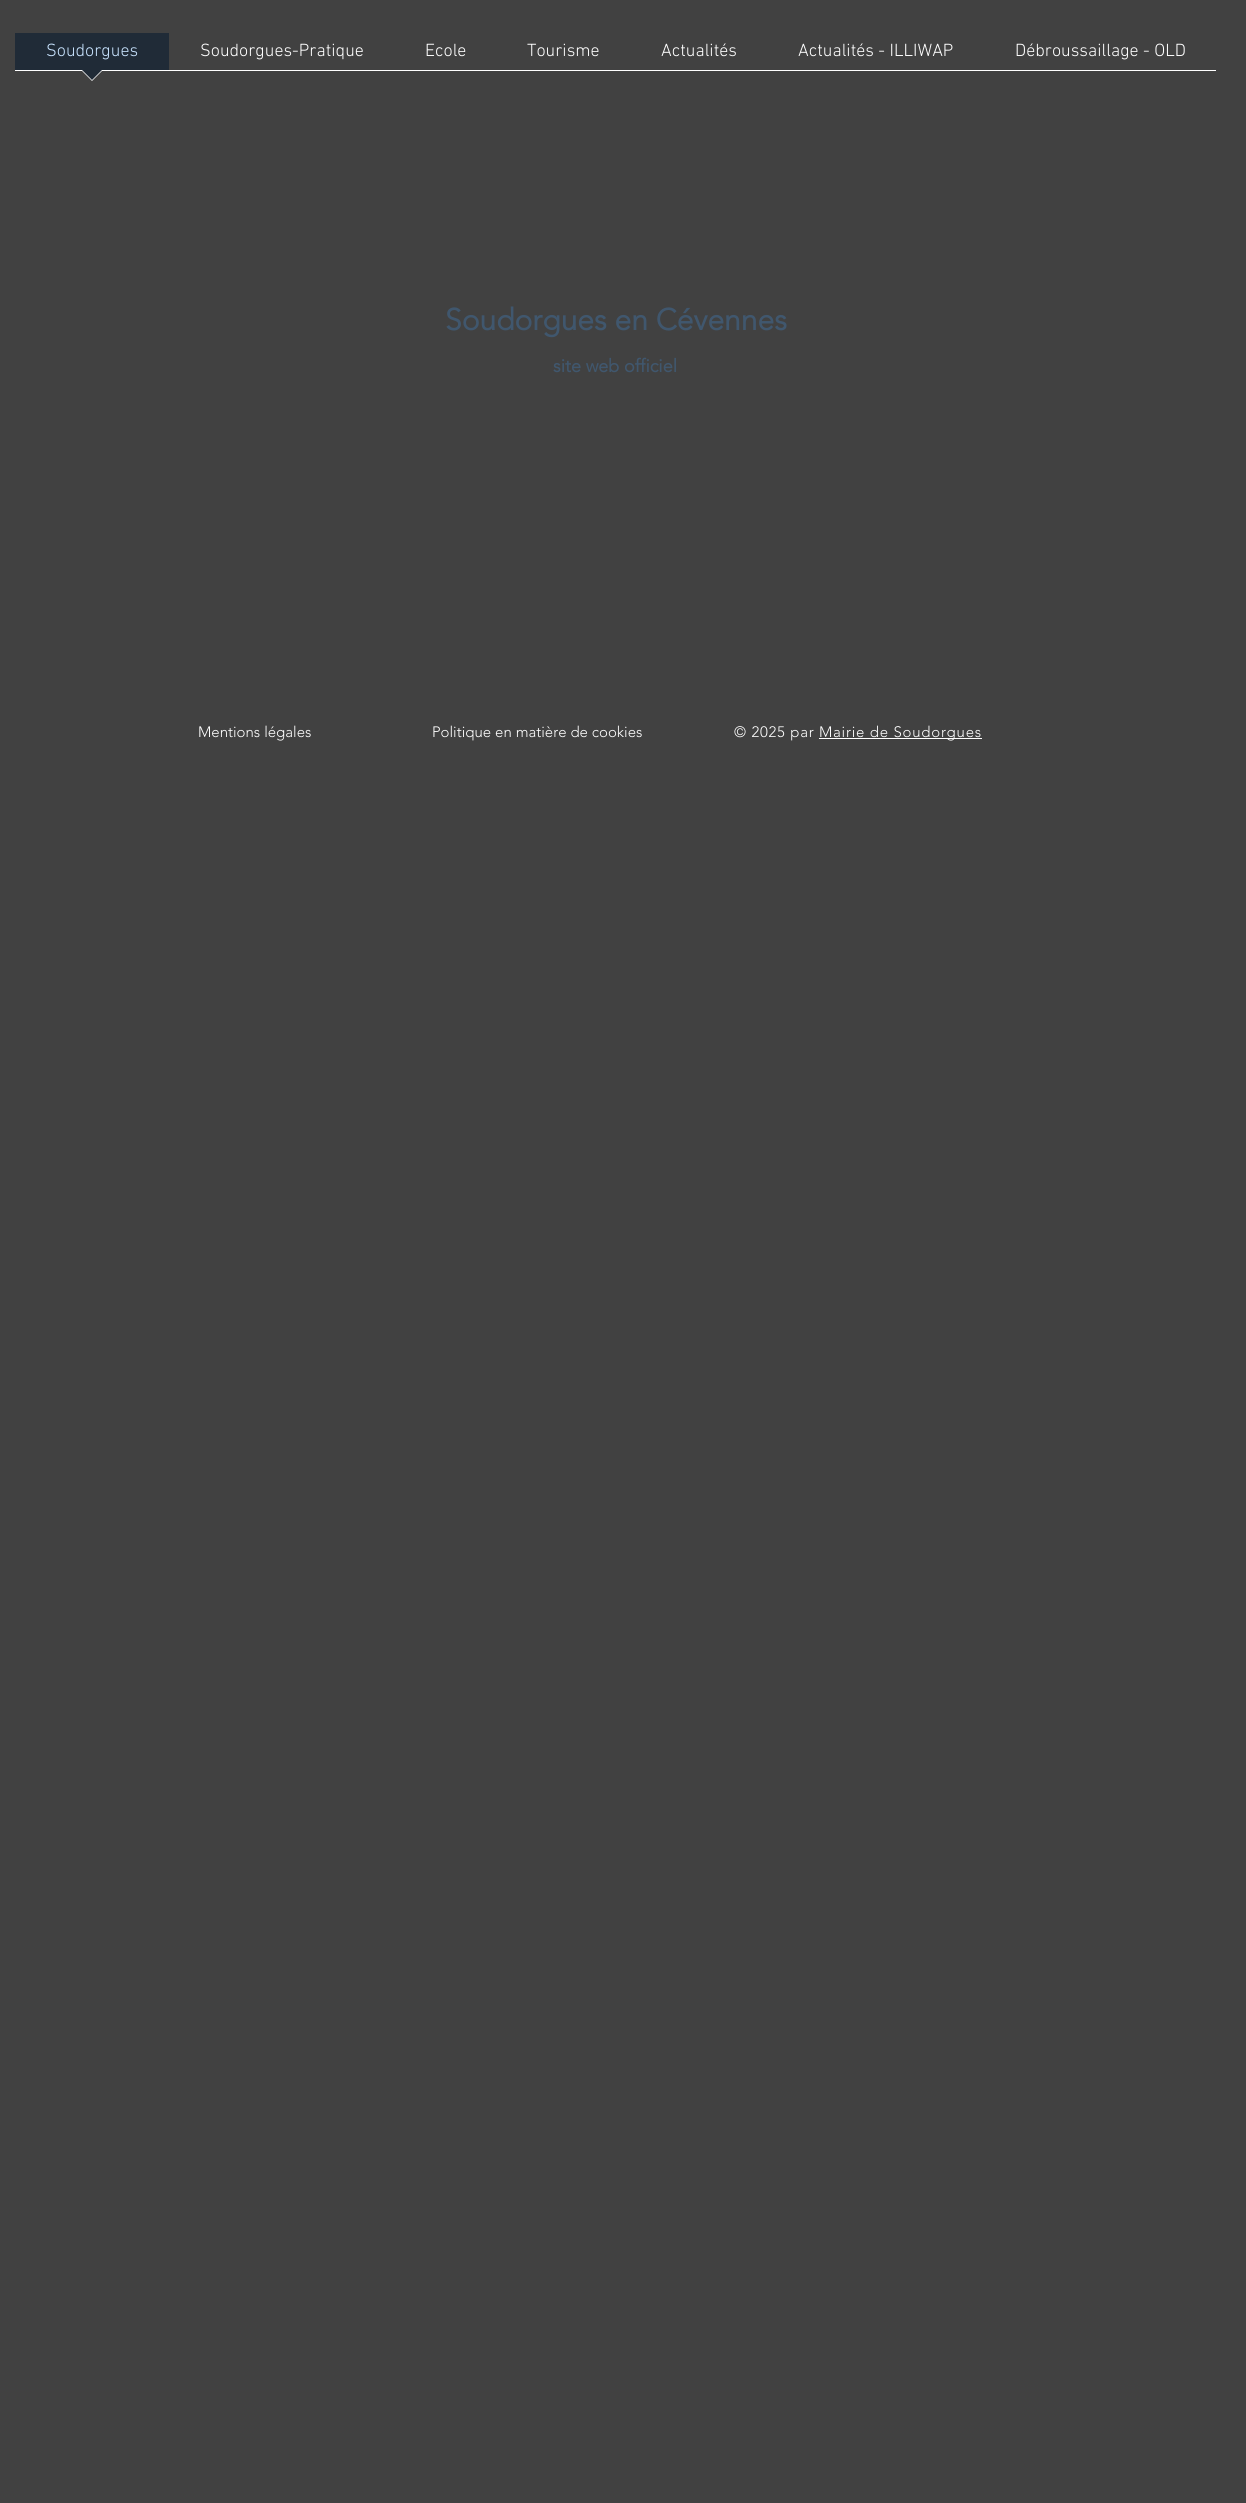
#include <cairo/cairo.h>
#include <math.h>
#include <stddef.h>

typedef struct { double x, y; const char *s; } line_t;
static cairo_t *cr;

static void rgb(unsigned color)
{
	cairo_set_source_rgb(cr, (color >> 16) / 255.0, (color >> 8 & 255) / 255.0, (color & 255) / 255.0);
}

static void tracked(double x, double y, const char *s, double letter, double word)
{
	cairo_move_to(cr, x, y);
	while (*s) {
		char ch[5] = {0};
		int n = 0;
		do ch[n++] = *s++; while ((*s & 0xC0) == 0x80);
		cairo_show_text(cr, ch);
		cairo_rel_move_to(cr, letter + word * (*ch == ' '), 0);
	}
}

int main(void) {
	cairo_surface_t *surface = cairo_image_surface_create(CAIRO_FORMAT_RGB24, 1246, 2503);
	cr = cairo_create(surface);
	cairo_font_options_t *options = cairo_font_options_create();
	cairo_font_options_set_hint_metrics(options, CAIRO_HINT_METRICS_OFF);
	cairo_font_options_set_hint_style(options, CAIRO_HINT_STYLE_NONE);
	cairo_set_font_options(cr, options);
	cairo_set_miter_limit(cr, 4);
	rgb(0x414141);
	cairo_paint(cr);
	rgb(0x202b37);
	cairo_rectangle(cr, 15, 33, 154, 37);
	cairo_fill(cr);
	rgb(0xffffff);
	cairo_rectangle(cr, 15, 70, 1201, 1);
	cairo_fill(cr);
	cairo_new_path(cr);
	cairo_move_to(cr, 81, 70);
	cairo_line_to(cr, 103, 70);
	cairo_line_to(cr, 92, 81);
	cairo_close_path(cr);
	cairo_fill(cr);
	rgb(0x202b37);
	cairo_new_path(cr);
	cairo_move_to(cr, 82, 70);
	cairo_line_to(cr, 102, 70);
	cairo_line_to(cr, 92, 80);
	cairo_close_path(cr);
	cairo_fill(cr);
	rgb(0xffffff);
	cairo_rectangle(cr, 819, 738, 163, 1);
	cairo_fill(cr);
	cairo_select_font_face(cr, "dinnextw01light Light", CAIRO_FONT_SLANT_NORMAL, CAIRO_FONT_WEIGHT_NORMAL);
	cairo_set_font_size(cr, 18);
	rgb(0xc7e2fd);
	cairo_move_to(cr, 46, 56);
	cairo_show_text(cr, "Soudorgues");
	rgb(0xffffff);
	{
		static const line_t items[] = {
			{200, 56, "Soudorgues-Pratique"},
			{425, 56, "Ecole"},
			{527, 56, "Tourisme"},
			{661, 56, "Actualités"},
			{798, 56, "Actualités - ILLIWAP"},
			{1015, 56, "Débroussaillage - OLD"},
		};
		for (size_t i = 0; i < sizeof items / sizeof *items; i++) {
			cairo_move_to(cr, items[i].x, items[i].y);
			cairo_show_text(cr, items[i].s);
		}
	}
	cairo_select_font_face(cr, "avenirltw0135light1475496", CAIRO_FONT_SLANT_NORMAL, CAIRO_FONT_WEIGHT_BOLD);
	cairo_set_font_size(cr, 30);
	rgb(0x40576e);
	cairo_move_to(cr, 445, 330);
	cairo_show_text(cr, "Soudorgues en Cévennes");
	cairo_set_font_size(cr, 18);
	cairo_move_to(cr, 553, 372);
	cairo_show_text(cr, "site web officiel");
	cairo_select_font_face(cr, "avenirltw0135light1475496 Light", CAIRO_FONT_SLANT_NORMAL, CAIRO_FONT_WEIGHT_NORMAL);
	cairo_set_font_size(cr, 15);
	rgb(0xffffff);
	cairo_move_to(cr, 198, 737);
	cairo_show_text(cr, "Mentions légales");
	cairo_move_to(cr, 432, 737);
	cairo_show_text(cr, "Politique en matière de cookies");
	tracked(734, 737, "© 2025 par", 0.75, 0);
	tracked(819, 737, "Mairie de Soudorgues", 0.75, 0);
	cairo_surface_write_to_png(surface, "page.png");
	cairo_font_options_destroy(options);
	cairo_destroy(cr);
	cairo_surface_destroy(surface);
	return 0;
}
